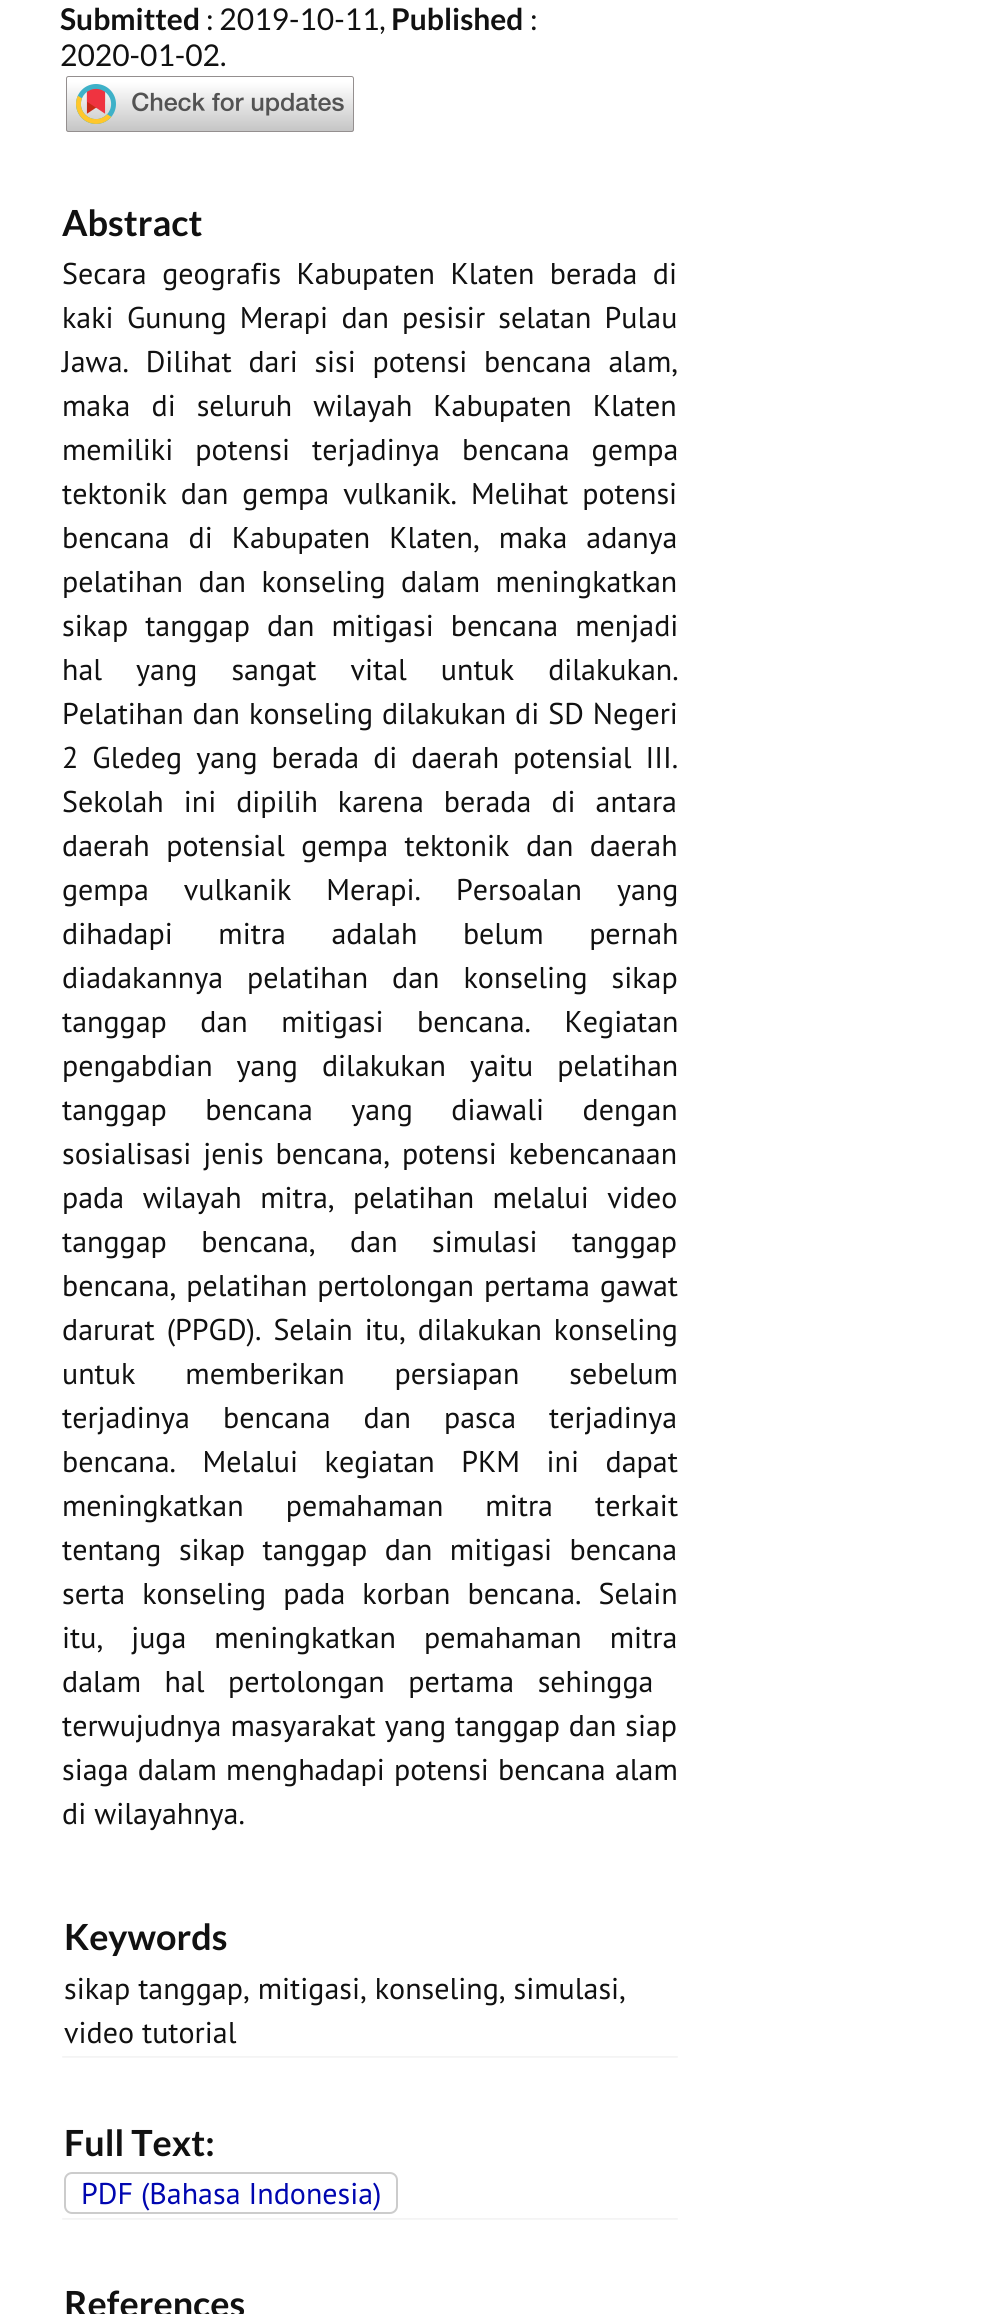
#include <cairo/cairo.h>
#include <math.h>
#include <stddef.h>

static cairo_t *cr;

static void rgb(unsigned color)
{
	cairo_set_source_rgb(cr, (color >> 16) / 255.0, (color >> 8 & 255) / 255.0, (color & 255) / 255.0);
}

static void tracked(double x, double y, const char *s, double letter, double word)
{
	cairo_move_to(cr, x, y);
	while (*s) {
		char ch[5] = {0};
		int n = 0;
		do ch[n++] = *s++; while ((*s & 0xC0) == 0x80);
		cairo_show_text(cr, ch);
		cairo_rel_move_to(cr, letter + word * (*ch == ' '), 0);
	}
}

static void rrect(double x, double y, double w, double h, double r)
{
	cairo_new_sub_path(cr);
	cairo_arc(cr, x + w - r, y + h - r, r, 0, M_PI / 2);
	cairo_arc(cr, x + r, y + h - r, r, M_PI / 2, M_PI);
	cairo_arc(cr, x + r, y + r, r, M_PI, 1.5 * M_PI);
	cairo_arc(cr, x + w - r, y + r, r, 1.5 * M_PI, 2 * M_PI);
	cairo_close_path(cr);
}

static void soft_shadow(double x, double y, double w, double h, double r, double blur, double alpha)
{
	cairo_push_group_with_content(cr, CAIRO_CONTENT_ALPHA);
	cairo_set_operator(cr, CAIRO_OPERATOR_SOURCE);
	for (int i = 15; i >= -15 && fmin(w, h) + blur * i / 3 > 0; i -= 2) {
		double e = blur * i / 6;
		cairo_set_source_rgba(cr, 0, 0, 0, alpha * erfc((i - 1) / 8.5) / 2);
		rrect(x - e, y - e, w + 2 * e, h + 2 * e, fmax(0, fmin(r + e + blur * .6, fmin(w, h) / 2 + e)));
		cairo_fill(cr);
	}
	cairo_pattern_t *soft = cairo_pop_group(cr);
	cairo_mask(cr, soft);
	cairo_pattern_destroy(soft);
}

static void image(const char *path, double x, double y, double w, double h)
{
	cairo_surface_t *image = cairo_image_surface_create_from_png(path);
	cairo_save(cr);
	cairo_set_source_surface(cr, image, x, y);
	cairo_rectangle(cr, x, y, w, h);
	cairo_fill(cr);
	cairo_restore(cr);
	cairo_surface_destroy(image);
}

int main(void) {
	cairo_surface_t *surface = cairo_image_surface_create(CAIRO_FORMAT_RGB24, 1006, 2314);
	cr = cairo_create(surface);
	cairo_font_options_t *options = cairo_font_options_create();
	cairo_font_options_set_hint_metrics(options, CAIRO_HINT_METRICS_OFF);
	cairo_font_options_set_hint_style(options, CAIRO_HINT_STYLE_NONE);
	cairo_set_font_options(cr, options);
	cairo_set_miter_limit(cr, 4);
	rgb(0xffffff);
	cairo_paint(cr);
	image("img/1.png", 66, 76, 288, 56);
	cairo_save(cr);
	cairo_rectangle(cr, 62, 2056, 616, 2);
	cairo_clip(cr);
	rgb(0x000000);
	soft_shadow(62, 1898, 616, 160, 0, 1, 0.05);
	cairo_restore(cr);
	cairo_save(cr);
	cairo_rectangle(cr, 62, 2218, 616, 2);
	cairo_clip(cr);
	rgb(0x000000);
	soft_shadow(62, 2104, 616, 116, 0, 1, 0.05);
	cairo_restore(cr);
	rrect(65, 2173, 332, 40, 7);
	rgb(0xcccccc);
	cairo_stroke(cr);
	cairo_select_font_face(cr, "Lato", CAIRO_FONT_SLANT_NORMAL, CAIRO_FONT_WEIGHT_BOLD);
	cairo_set_font_size(cr, 30);
	rgb(0x111111);
	cairo_move_to(cr, 60, 30);
	cairo_show_text(cr, "Submitted");
	cairo_select_font_face(cr, "Lato", CAIRO_FONT_SLANT_NORMAL, CAIRO_FONT_WEIGHT_NORMAL);
	cairo_move_to(cr, 206, 30);
	cairo_show_text(cr, ": 2019-10-11,");
	cairo_select_font_face(cr, "Lato", CAIRO_FONT_SLANT_NORMAL, CAIRO_FONT_WEIGHT_BOLD);
	cairo_move_to(cr, 391, 30);
	cairo_show_text(cr, "Published");
	cairo_select_font_face(cr, "Lato", CAIRO_FONT_SLANT_NORMAL, CAIRO_FONT_WEIGHT_NORMAL);
	cairo_move_to(cr, 530, 30);
	cairo_show_text(cr, ":");
	cairo_move_to(cr, 60, 66);
	cairo_show_text(cr, "2020-01-02.");
	cairo_select_font_face(cr, "Lato", CAIRO_FONT_SLANT_NORMAL, CAIRO_FONT_WEIGHT_BOLD);
	cairo_set_font_size(cr, 36);
	cairo_move_to(cr, 62, 236);
	cairo_show_text(cr, "Abstract");
	cairo_select_font_face(cr, "PT Sans", CAIRO_FONT_SLANT_NORMAL, CAIRO_FONT_WEIGHT_NORMAL);
	cairo_set_font_size(cr, 30);
	tracked(62, 284, "Secara geografis Kabupaten Klaten berada di", 0, 7.5);
	tracked(62, 328, "kaki Gunung Merapi dan pesisir selatan Pulau", 0, 5.25);
	tracked(62, 372, "Jawa. Dilihat dari sisi potensi bencana alam,", 0, 8.75);
	tracked(62, 416, "maka di seluruh wilayah Kabupaten Klaten", 0, 13);
	tracked(62, 460, "memiliki potensi terjadinya bencana gempa", 0, 14);
	tracked(62, 504, "tektonik dan gempa vulkanik. Melihat potensi", 0, 6);
	tracked(62, 548, "bencana di Kabupaten Klaten, maka adanya", 0, 11);
	tracked(62, 592, "pelatihan dan konseling dalam meningkatkan", 0, 7.5);
	tracked(62, 636, "sikap tanggap dan mitigasi bencana menjadi", 0, 9);
	tracked(62, 680, "hal yang sangat vital untuk dilakukan.", 0, 26);
	tracked(62, 724, "Pelatihan dan konseling dilakukan di SD Negeri", 0, 1);
	tracked(62, 768, "2 Gledeg yang berada di daerah potensial III.", 0, 6);
	tracked(62, 812, "Sekolah ini dipilih karena berada di antara", 0, 12);
	tracked(62, 856, "daerah potensial gempa tektonik dan daerah", 0, 8.5);
	tracked(62, 900, "gempa vulkanik Merapi. Persoalan yang", 0, 27);
	tracked(62, 944, "dihadapi mitra adalah belum pernah", 0, 37.5);
	tracked(62, 988, "diadakannya pelatihan dan konseling sikap", 0, 16);
	tracked(62, 1032, "tanggap dan mitigasi bencana. Kegiatan", 0, 25.5);
	tracked(62, 1076, "pengabdian yang dilakukan yaitu pelatihan", 0, 16);
	tracked(62, 1120, "tanggap bencana yang diawali dengan", 0, 30.5);
	tracked(62, 1164, "sosialisasi jenis bencana, potensi kebencanaan", 0, 4);
	tracked(62, 1208, "pada wilayah mitra, pelatihan melalui video", 0, 10.5);
	tracked(62, 1252, "tanggap bencana, dan simulasi tanggap", 0, 26.5);
	tracked(62, 1296, "bencana, pelatihan pertolongan pertama gawat", 0, 2);
	tracked(62, 1340, "darurat (PPGD). Selain itu, dilakukan konseling", 0, 4);
	tracked(62, 1384, "untuk memberikan persiapan sebelum", 0, 42);
	tracked(62, 1428, "terjadinya bencana dan pasca terjadinya", 0, 25);
	tracked(62, 1472, "bencana. Melalui kegiatan PKM ini dapat", 0, 18.5);
	tracked(62, 1516, "meningkatkan pemahaman mitra terkait", 0, 34);
	tracked(62, 1560, "tentang sikap tanggap dan mitigasi bencana", 0, 9.5);
	tracked(62, 1604, "serta konseling pada korban bencana. Selain", 0, 9);
	tracked(62, 1648, "itu, juga meningkatkan pemahaman mitra", 0, 20);
	tracked(62, 1692, "dalam hal pertolongan pertama sehingga", 0, 15.5);
	tracked(62, 1736, "terwujudnya masyarakat yang tanggap dan siap", 0, 1);
	tracked(62, 1780, "siaga dalam menghadapi potensi bencana alam", 0, 1.25);
	cairo_move_to(cr, 62, 1824);
	cairo_show_text(cr, "di wilayahnya.");
	cairo_select_font_face(cr, "Lato", CAIRO_FONT_SLANT_NORMAL, CAIRO_FONT_WEIGHT_BOLD);
	cairo_set_font_size(cr, 36);
	cairo_move_to(cr, 64, 1950);
	cairo_show_text(cr, "Keywords");
	cairo_select_font_face(cr, "PT Sans", CAIRO_FONT_SLANT_NORMAL, CAIRO_FONT_WEIGHT_NORMAL);
	cairo_set_font_size(cr, 30);
	cairo_move_to(cr, 64, 1999);
	cairo_show_text(cr, "sikap tanggap, mitigasi, konseling, simulasi,");
	cairo_move_to(cr, 64, 2043);
	cairo_show_text(cr, "video tutorial");
	cairo_select_font_face(cr, "Lato", CAIRO_FONT_SLANT_NORMAL, CAIRO_FONT_WEIGHT_BOLD);
	cairo_set_font_size(cr, 36);
	cairo_move_to(cr, 64, 2156);
	cairo_show_text(cr, "Full Text:");
	cairo_select_font_face(cr, "PT Sans", CAIRO_FONT_SLANT_NORMAL, CAIRO_FONT_WEIGHT_NORMAL);
	cairo_set_font_size(cr, 30);
	rgb(0x0006b0);
	cairo_move_to(cr, 81, 2204);
	cairo_show_text(cr, "PDF (Bahasa Indonesia)");
	cairo_select_font_face(cr, "Lato", CAIRO_FONT_SLANT_NORMAL, CAIRO_FONT_WEIGHT_BOLD);
	cairo_set_font_size(cr, 36);
	rgb(0x111111);
	cairo_move_to(cr, 64, 2317);
	cairo_show_text(cr, "References");
	cairo_surface_write_to_png(surface, "page.png");
	cairo_font_options_destroy(options);
	cairo_destroy(cr);
	cairo_surface_destroy(surface);
	return 0;
}
